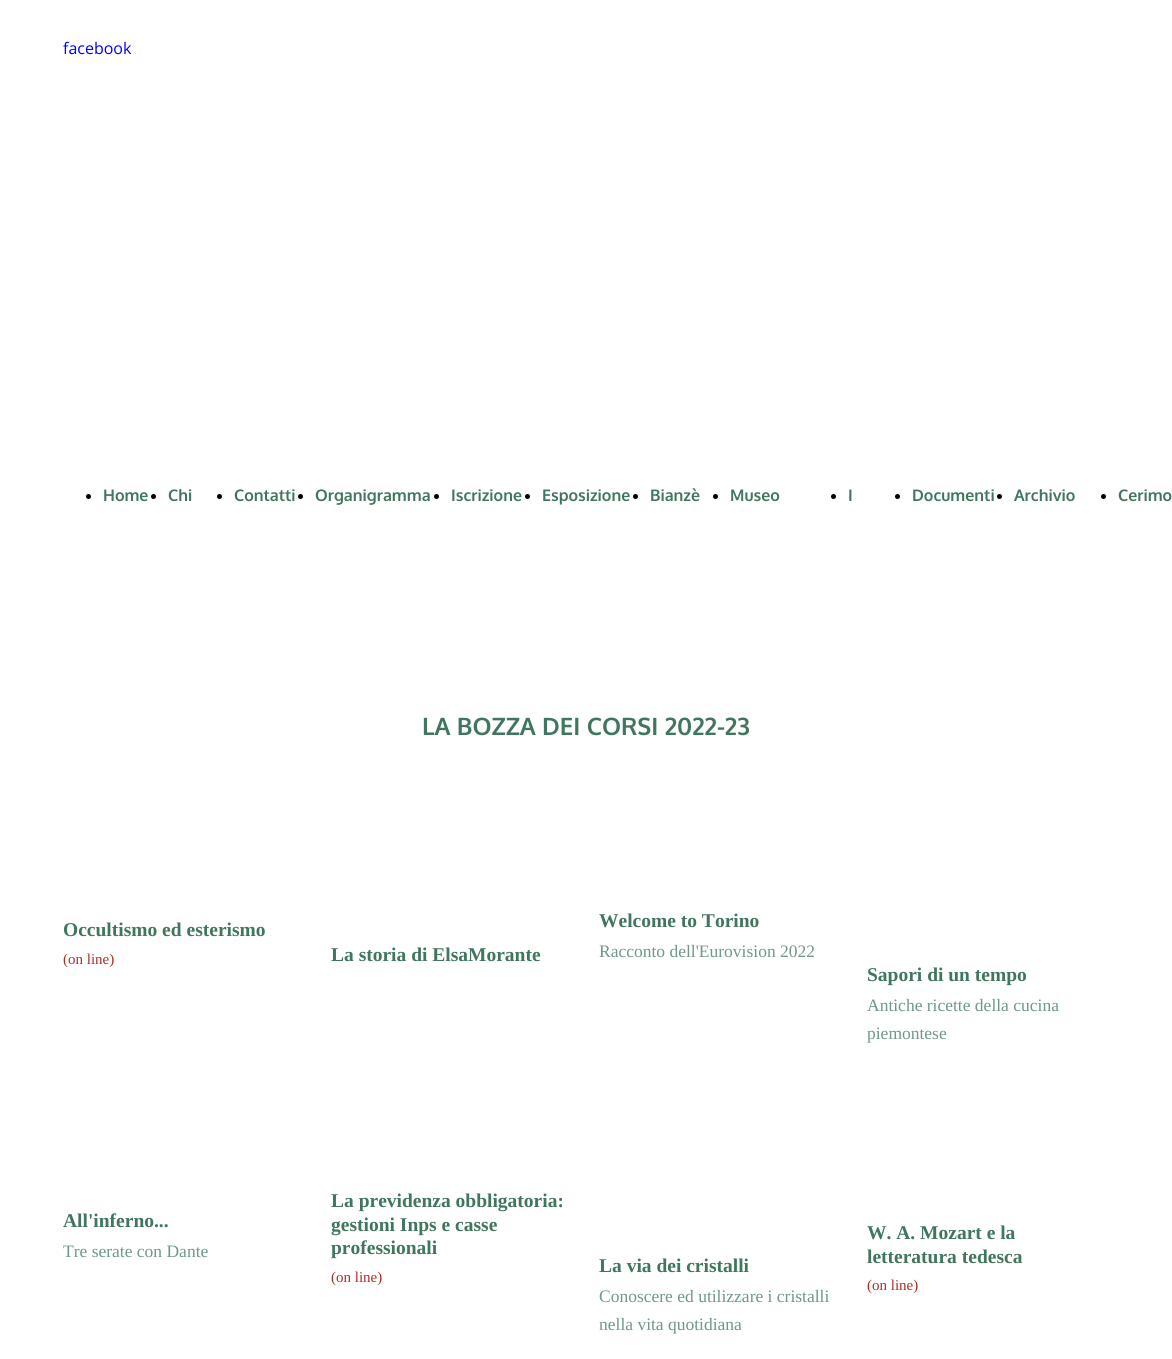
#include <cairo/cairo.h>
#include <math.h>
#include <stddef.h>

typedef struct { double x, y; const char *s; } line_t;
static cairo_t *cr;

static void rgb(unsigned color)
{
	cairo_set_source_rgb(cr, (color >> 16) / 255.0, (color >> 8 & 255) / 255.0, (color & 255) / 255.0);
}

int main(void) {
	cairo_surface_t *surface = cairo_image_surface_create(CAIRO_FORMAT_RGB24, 1172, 1359);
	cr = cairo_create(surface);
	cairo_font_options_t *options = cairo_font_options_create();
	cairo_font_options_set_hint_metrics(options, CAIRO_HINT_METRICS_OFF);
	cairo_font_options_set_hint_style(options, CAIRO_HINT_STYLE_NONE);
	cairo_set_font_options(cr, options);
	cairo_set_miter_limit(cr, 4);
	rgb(0xffffff);
	cairo_paint(cr);
	rgb(0x000000);
	cairo_arc(cr, 88.5, 496.5, 2.5, 0, 2 * M_PI);
	cairo_fill(cr);
	cairo_arc(cr, 153.5, 496.5, 2.5, 0, 2 * M_PI);
	cairo_fill(cr);
	cairo_arc(cr, 219.5, 496.5, 2.5, 0, 2 * M_PI);
	cairo_fill(cr);
	cairo_arc(cr, 300.5, 496.5, 2.5, 0, 2 * M_PI);
	cairo_fill(cr);
	cairo_arc(cr, 436.5, 496.5, 2.5, 0, 2 * M_PI);
	cairo_fill(cr);
	cairo_arc(cr, 527.5, 496.5, 2.5, 0, 2 * M_PI);
	cairo_fill(cr);
	cairo_arc(cr, 635.5, 496.5, 2.5, 0, 2 * M_PI);
	cairo_fill(cr);
	cairo_arc(cr, 715.5, 496.5, 2.5, 0, 2 * M_PI);
	cairo_fill(cr);
	cairo_arc(cr, 833.5, 496.5, 2.5, 0, 2 * M_PI);
	cairo_fill(cr);
	cairo_arc(cr, 897.5, 496.5, 2.5, 0, 2 * M_PI);
	cairo_fill(cr);
	cairo_arc(cr, 999.5, 496.5, 2.5, 0, 2 * M_PI);
	cairo_fill(cr);
	cairo_arc(cr, 1103.5, 496.5, 2.5, 0, 2 * M_PI);
	cairo_fill(cr);
	cairo_select_font_face(cr, "Open Sans", CAIRO_FONT_SLANT_NORMAL, CAIRO_FONT_WEIGHT_NORMAL);
	cairo_set_font_size(cr, 16);
	rgb(0x0000ff);
	cairo_move_to(cr, 63, 54);
	cairo_show_text(cr, "facebook");
	cairo_select_font_face(cr, "Oxygen", CAIRO_FONT_SLANT_NORMAL, CAIRO_FONT_WEIGHT_BOLD);
	rgb(0x3f765d);
	{
		static const line_t items[] = {
			{103, 501, "Home"},
			{168, 501, "Chi"},
			{234, 501, "Contatti"},
			{315, 501, "Organigramma"},
			{451, 501, "Iscrizione"},
			{542, 501, "Esposizione"},
			{650, 501, "Bianzè"},
			{730, 501, "Museo"},
			{848, 501, "I"},
			{912, 501, "Documenti"},
			{1014, 501, "Archivio"},
			{1118, 501, "Cerimo"},
		};
		for (size_t i = 0; i < sizeof items / sizeof *items; i++) {
			cairo_move_to(cr, items[i].x, items[i].y);
			cairo_show_text(cr, items[i].s);
		}
	}
	cairo_set_font_size(cr, 24);
	cairo_move_to(cr, 422, 735);
	cairo_show_text(cr, "LA BOZZA DEI CORSI 2022-23");
	cairo_select_font_face(cr, "Liberation Serif", CAIRO_FONT_SLANT_NORMAL, CAIRO_FONT_WEIGHT_BOLD);
	cairo_set_font_size(cr, 19.5);
	cairo_move_to(cr, 63, 936);
	cairo_show_text(cr, "Occultismo ed esterismo");
	cairo_select_font_face(cr, "Liberation Serif", CAIRO_FONT_SLANT_NORMAL, CAIRO_FONT_WEIGHT_NORMAL);
	cairo_set_font_size(cr, 15);
	rgb(0xac2e26);
	cairo_move_to(cr, 63, 964);
	cairo_show_text(cr, "(on line)");
	cairo_select_font_face(cr, "Liberation Serif", CAIRO_FONT_SLANT_NORMAL, CAIRO_FONT_WEIGHT_BOLD);
	cairo_set_font_size(cr, 19.5);
	rgb(0x3f765d);
	cairo_move_to(cr, 331, 961);
	cairo_show_text(cr, "La storia di ElsaMorante");
	cairo_move_to(cr, 599, 927);
	cairo_show_text(cr, "Welcome to Torino");
	cairo_select_font_face(cr, "Liberation Serif", CAIRO_FONT_SLANT_NORMAL, CAIRO_FONT_WEIGHT_NORMAL);
	cairo_set_font_size(cr, 17.5);
	rgb(0x6f9886);
	cairo_move_to(cr, 599, 957);
	cairo_show_text(cr, "Racconto dell'Eurovision 2022");
	cairo_select_font_face(cr, "Liberation Serif", CAIRO_FONT_SLANT_NORMAL, CAIRO_FONT_WEIGHT_BOLD);
	cairo_set_font_size(cr, 19.5);
	rgb(0x3f765d);
	cairo_move_to(cr, 867, 981);
	cairo_show_text(cr, "Sapori di un tempo");
	cairo_select_font_face(cr, "Liberation Serif", CAIRO_FONT_SLANT_NORMAL, CAIRO_FONT_WEIGHT_NORMAL);
	cairo_set_font_size(cr, 17.5);
	rgb(0x6f9886);
	cairo_move_to(cr, 867, 1011);
	cairo_show_text(cr, "Antiche ricette della cucina");
	cairo_move_to(cr, 867, 1039);
	cairo_show_text(cr, "piemontese");
	cairo_select_font_face(cr, "Liberation Serif", CAIRO_FONT_SLANT_NORMAL, CAIRO_FONT_WEIGHT_BOLD);
	cairo_set_font_size(cr, 19.5);
	rgb(0x3f765d);
	cairo_move_to(cr, 63, 1227);
	cairo_show_text(cr, "All'inferno...");
	cairo_select_font_face(cr, "Liberation Serif", CAIRO_FONT_SLANT_NORMAL, CAIRO_FONT_WEIGHT_NORMAL);
	cairo_set_font_size(cr, 17.5);
	rgb(0x6f9886);
	cairo_move_to(cr, 63, 1257);
	cairo_show_text(cr, "Tre serate con Dante");
	cairo_select_font_face(cr, "Liberation Serif", CAIRO_FONT_SLANT_NORMAL, CAIRO_FONT_WEIGHT_BOLD);
	cairo_set_font_size(cr, 19.5);
	rgb(0x3f765d);
	{
		static const line_t items[] = {
			{331, 1207, "La previdenza obbligatoria:"},
			{331, 1231, "gestioni Inps e casse"},
			{331, 1254, "professionali"},
		};
		for (size_t i = 0; i < sizeof items / sizeof *items; i++) {
			cairo_move_to(cr, items[i].x, items[i].y);
			cairo_show_text(cr, items[i].s);
		}
	}
	cairo_select_font_face(cr, "Liberation Serif", CAIRO_FONT_SLANT_NORMAL, CAIRO_FONT_WEIGHT_NORMAL);
	cairo_set_font_size(cr, 15);
	rgb(0xac2e26);
	cairo_move_to(cr, 331, 1282);
	cairo_show_text(cr, "(on line)");
	cairo_select_font_face(cr, "Liberation Serif", CAIRO_FONT_SLANT_NORMAL, CAIRO_FONT_WEIGHT_BOLD);
	cairo_set_font_size(cr, 19.5);
	rgb(0x3f765d);
	cairo_move_to(cr, 599, 1272);
	cairo_show_text(cr, "La via dei cristalli");
	cairo_select_font_face(cr, "Liberation Serif", CAIRO_FONT_SLANT_NORMAL, CAIRO_FONT_WEIGHT_NORMAL);
	cairo_set_font_size(cr, 17.5);
	rgb(0x6f9886);
	cairo_move_to(cr, 599, 1302);
	cairo_show_text(cr, "Conoscere ed utilizzare i cristalli");
	cairo_move_to(cr, 599, 1330);
	cairo_show_text(cr, "nella vita quotidiana");
	cairo_select_font_face(cr, "Liberation Serif", CAIRO_FONT_SLANT_NORMAL, CAIRO_FONT_WEIGHT_BOLD);
	cairo_set_font_size(cr, 19.5);
	rgb(0x3f765d);
	cairo_move_to(cr, 867, 1239);
	cairo_show_text(cr, "W. A. Mozart e la");
	cairo_move_to(cr, 867, 1263);
	cairo_show_text(cr, "letteratura tedesca");
	cairo_select_font_face(cr, "Liberation Serif", CAIRO_FONT_SLANT_NORMAL, CAIRO_FONT_WEIGHT_NORMAL);
	cairo_set_font_size(cr, 15);
	rgb(0xac2e26);
	cairo_move_to(cr, 867, 1290);
	cairo_show_text(cr, "(on line)");
	cairo_surface_write_to_png(surface, "page.png");
	cairo_font_options_destroy(options);
	cairo_destroy(cr);
	cairo_surface_destroy(surface);
	return 0;
}
